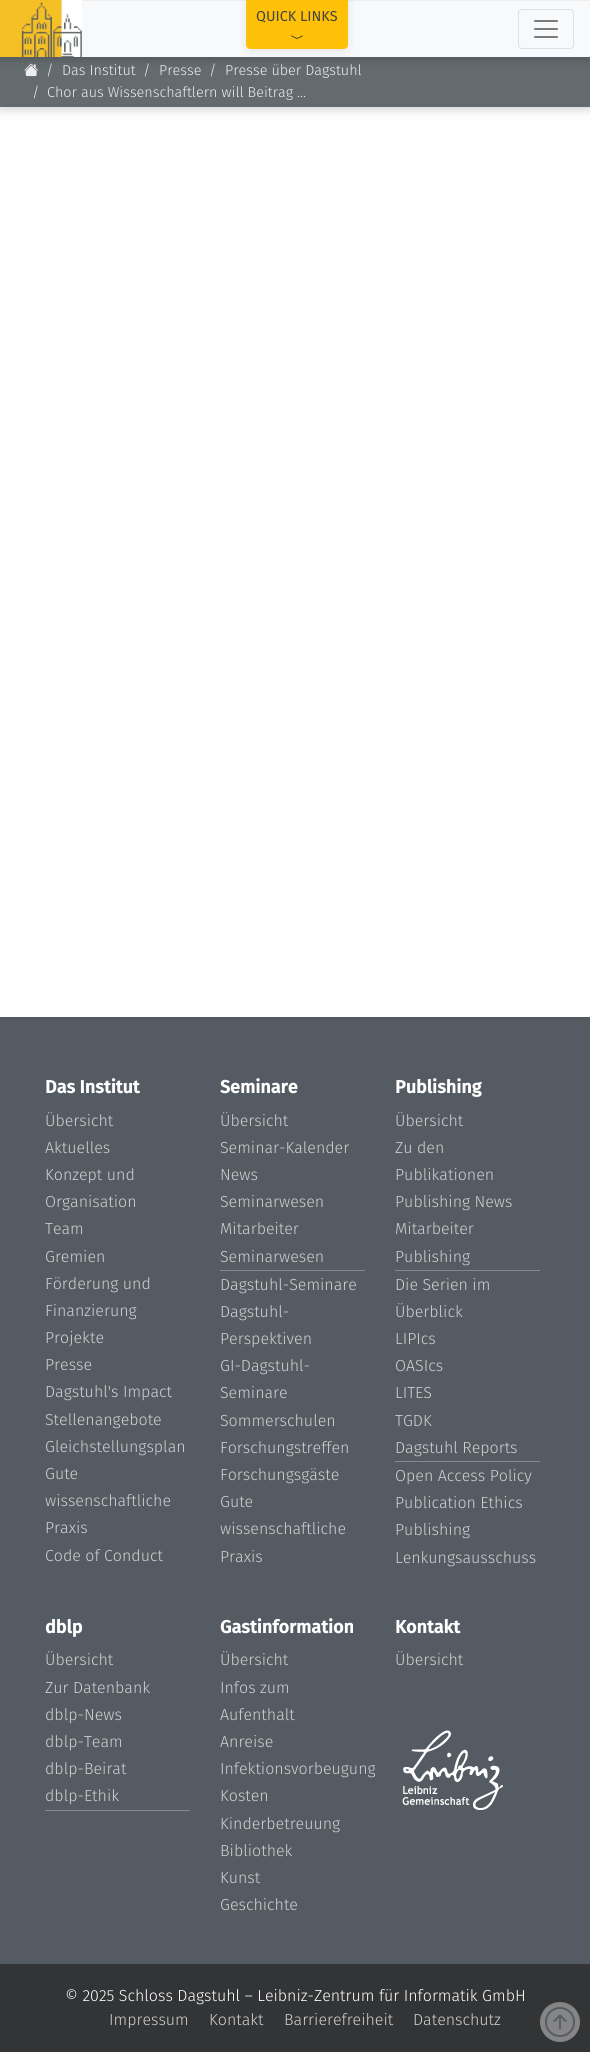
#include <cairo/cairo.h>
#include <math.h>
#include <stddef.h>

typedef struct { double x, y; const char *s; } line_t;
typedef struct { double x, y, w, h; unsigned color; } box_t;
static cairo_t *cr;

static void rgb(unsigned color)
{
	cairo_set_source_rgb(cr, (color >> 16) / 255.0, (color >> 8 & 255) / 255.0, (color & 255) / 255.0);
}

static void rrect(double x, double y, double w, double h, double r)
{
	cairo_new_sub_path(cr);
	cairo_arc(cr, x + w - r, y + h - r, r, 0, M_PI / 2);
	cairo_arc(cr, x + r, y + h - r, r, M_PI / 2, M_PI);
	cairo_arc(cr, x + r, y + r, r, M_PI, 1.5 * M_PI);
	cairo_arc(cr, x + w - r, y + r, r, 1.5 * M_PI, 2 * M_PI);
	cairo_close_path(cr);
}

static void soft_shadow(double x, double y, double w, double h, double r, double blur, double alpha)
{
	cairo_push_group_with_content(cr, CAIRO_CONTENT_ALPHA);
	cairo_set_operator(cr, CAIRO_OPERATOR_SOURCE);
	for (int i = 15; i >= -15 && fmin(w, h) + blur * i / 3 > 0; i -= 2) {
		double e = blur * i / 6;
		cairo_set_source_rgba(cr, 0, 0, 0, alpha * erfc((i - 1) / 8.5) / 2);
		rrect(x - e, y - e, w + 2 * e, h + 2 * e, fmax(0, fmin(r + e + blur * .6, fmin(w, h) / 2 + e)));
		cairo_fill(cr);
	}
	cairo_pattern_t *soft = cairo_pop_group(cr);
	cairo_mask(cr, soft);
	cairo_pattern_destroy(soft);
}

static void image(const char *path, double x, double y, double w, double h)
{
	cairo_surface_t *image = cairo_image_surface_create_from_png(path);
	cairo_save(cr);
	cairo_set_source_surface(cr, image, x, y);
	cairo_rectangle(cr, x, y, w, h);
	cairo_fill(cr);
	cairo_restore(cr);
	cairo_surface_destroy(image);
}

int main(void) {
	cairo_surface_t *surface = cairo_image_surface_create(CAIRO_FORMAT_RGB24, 590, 2052);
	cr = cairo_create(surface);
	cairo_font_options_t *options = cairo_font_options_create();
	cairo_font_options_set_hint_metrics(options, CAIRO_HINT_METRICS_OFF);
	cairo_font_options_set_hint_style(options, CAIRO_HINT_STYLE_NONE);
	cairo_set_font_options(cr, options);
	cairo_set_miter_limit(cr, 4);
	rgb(0xffffff);
	cairo_paint(cr);
	rgb(0x000000);
	soft_shadow(0, 59, 590, 50, 0, 5, 0.2);
	rgb(0x636b6f);
	cairo_rectangle(cr, 0, 57, 590, 50);
	cairo_fill(cr);
	image("img/4.png", 24, 63, 14, 14);
	rgb(0x000000);
	soft_shadow(0, 2, 590, 57, 0, 5, 0.2);
	rgb(0xf8f9fa);
	cairo_rectangle(cr, 82, 1, 508, 56);
	cairo_fill(cr);
	rgb(0xeeeeee);
	cairo_rectangle(cr, 587, 0, 3, 1);
	cairo_fill(cr);
	image("img/1.png", 0, 0, 82, 57);
	rrect(518.5, 9.5, 55, 39, 3.5);
	rgb(0xdfe0e1);
	cairo_set_line_width(cr, 1);
	cairo_stroke(cr);
	image("img/2.png", 534, 20, 24, 18);
	rgb(0x000000);
	soft_shadow(246, -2, 102, 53, 4, 5, 0.08);
	rgb(0xffc107);
	cairo_new_path(cr);
	cairo_move_to(cr, 246, -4);
	cairo_line_to(cr, 348, -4);
	cairo_line_to(cr, 348, 45);
	cairo_curve_to(cr, 348, 47, 346, 49, 344, 49);
	cairo_line_to(cr, 250, 49);
	cairo_curve_to(cr, 248, 49, 246, 47, 246, 45);
	cairo_close_path(cr);
	cairo_fill(cr);
	image("img/3.png", 291, 35, 12, 4);
	{
		static const box_t items[] = {
			{0, 1017, 590, 947, 0x545b62},
			{220, 1270, 145, 1, 0x888888},
			{395, 1270, 145, 1, 0x888888},
			{395, 1461, 145, 1, 0x888888},
			{45, 1810, 145, 1, 0x888888},
		};
		for (size_t i = 0; i < sizeof items / sizeof *items; i++) {
			rgb(items[i].color);
			cairo_rectangle(cr, items[i].x, items[i].y, items[i].w, items[i].h);
			cairo_fill(cr);
		}
	}
	image("img/5.png", 402, 1730, 101, 80);
	rgb(0x333435);
	cairo_rectangle(cr, 0, 1964, 590, 88);
	cairo_fill(cr);
	rgb(0x858586);
	cairo_arc(cr, 560, 2022, 20, 0, 2 * M_PI);
	cairo_fill(cr);
	image("img/6.png", 545, 2007, 30, 30);
	cairo_select_font_face(cr, "Fira Sans", CAIRO_FONT_SLANT_NORMAL, CAIRO_FONT_WEIGHT_NORMAL);
	cairo_set_font_size(cr, 14.4);
	rgb(0x444444);
	cairo_move_to(cr, 256, 21);
	cairo_show_text(cr, "QUICK LINKS");
	cairo_select_font_face(cr, "Fira Sans Light", CAIRO_FONT_SLANT_NORMAL, CAIRO_FONT_WEIGHT_NORMAL);
	rgb(0xeeeeee);
	{
		static const line_t items[] = {
			{46, 75, "/"},
			{62, 75, "Das Institut"},
			{143, 75, "/"},
			{159, 75, "Presse"},
			{209, 75, "/"},
			{225, 75, "Presse über Dagstuhl"},
			{32, 97, "/"},
			{47, 97, "Chor aus Wissenschaftlern will Beitrag …"},
		};
		for (size_t i = 0; i < sizeof items / sizeof *items; i++) {
			cairo_move_to(cr, items[i].x, items[i].y);
			cairo_show_text(cr, items[i].s);
		}
	}
	cairo_select_font_face(cr, "Fira Sans", CAIRO_FONT_SLANT_NORMAL, CAIRO_FONT_WEIGHT_BOLD);
	cairo_set_font_size(cr, 18);
	rgb(0xffffff);
	cairo_move_to(cr, 45, 1093);
	cairo_show_text(cr, "Das Institut");
	cairo_select_font_face(cr, "Fira Sans Light", CAIRO_FONT_SLANT_NORMAL, CAIRO_FONT_WEIGHT_NORMAL);
	cairo_set_font_size(cr, 16);
	rgb(0xd2d1d1);
	{
		static const line_t items[] = {
			{45, 1126, "Übersicht"},
			{45, 1153, "Aktuelles"},
			{45, 1180, "Konzept und"},
			{45, 1207, "Organisation"},
			{45, 1234, "Team"},
			{45, 1262, "Gremien"},
			{45, 1289, "Förderung und"},
			{45, 1316, "Finanzierung"},
			{45, 1343, "Projekte"},
			{45, 1370, "Presse"},
			{45, 1397, "Dagstuhl's Impact"},
			{45, 1425, "Stellenangebote"},
			{45, 1452, "Gleichstellungsplan"},
			{45, 1479, "Gute"},
			{45, 1506, "wissenschaftliche"},
			{45, 1533, "Praxis"},
			{45, 1561, "Code of Conduct"},
		};
		for (size_t i = 0; i < sizeof items / sizeof *items; i++) {
			cairo_move_to(cr, items[i].x, items[i].y);
			cairo_show_text(cr, items[i].s);
		}
	}
	cairo_select_font_face(cr, "Fira Sans", CAIRO_FONT_SLANT_NORMAL, CAIRO_FONT_WEIGHT_BOLD);
	cairo_set_font_size(cr, 18);
	rgb(0xffffff);
	cairo_move_to(cr, 220, 1093);
	cairo_show_text(cr, "Seminare");
	cairo_select_font_face(cr, "Fira Sans Light", CAIRO_FONT_SLANT_NORMAL, CAIRO_FONT_WEIGHT_NORMAL);
	cairo_set_font_size(cr, 16);
	rgb(0xd2d1d1);
	{
		static const line_t items[] = {
			{220, 1126, "Übersicht"},
			{220, 1153, "Seminar-Kalender"},
			{220, 1180, "News"},
			{220, 1207, "Seminarwesen"},
			{220, 1234, "Mitarbeiter"},
			{220, 1262, "Seminarwesen"},
			{220, 1290, "Dagstuhl-Seminare"},
			{220, 1317, "Dagstuhl-"},
			{220, 1344, "Perspektiven"},
			{220, 1371, "GI-Dagstuhl-"},
			{220, 1398, "Seminare"},
			{220, 1426, "Sommerschulen"},
			{220, 1453, "Forschungstreffen"},
			{220, 1480, "Forschungsgäste"},
			{220, 1507, "Gute"},
			{220, 1534, "wissenschaftliche"},
			{220, 1562, "Praxis"},
		};
		for (size_t i = 0; i < sizeof items / sizeof *items; i++) {
			cairo_move_to(cr, items[i].x, items[i].y);
			cairo_show_text(cr, items[i].s);
		}
	}
	cairo_select_font_face(cr, "Fira Sans", CAIRO_FONT_SLANT_NORMAL, CAIRO_FONT_WEIGHT_BOLD);
	cairo_set_font_size(cr, 18);
	rgb(0xffffff);
	cairo_move_to(cr, 395, 1093);
	cairo_show_text(cr, "Publishing");
	cairo_select_font_face(cr, "Fira Sans Light", CAIRO_FONT_SLANT_NORMAL, CAIRO_FONT_WEIGHT_NORMAL);
	cairo_set_font_size(cr, 16);
	rgb(0xd2d1d1);
	{
		static const line_t items[] = {
			{395, 1126, "Übersicht"},
			{395, 1153, "Zu den"},
			{395, 1180, "Publikationen"},
			{395, 1207, "Publishing News"},
			{395, 1234, "Mitarbeiter"},
			{395, 1262, "Publishing"},
			{395, 1290, "Die Serien im"},
			{395, 1317, "Überblick"},
			{395, 1344, "LIPIcs"},
			{395, 1371, "OASIcs"},
			{395, 1398, "LITES"},
			{395, 1426, "TGDK"},
			{395, 1453, "Dagstuhl Reports"},
			{395, 1481, "Open Access Policy"},
			{395, 1508, "Publication Ethics"},
			{395, 1535, "Publishing"},
			{395, 1563, "Lenkungsausschuss"},
		};
		for (size_t i = 0; i < sizeof items / sizeof *items; i++) {
			cairo_move_to(cr, items[i].x, items[i].y);
			cairo_show_text(cr, items[i].s);
		}
	}
	cairo_select_font_face(cr, "Fira Sans", CAIRO_FONT_SLANT_NORMAL, CAIRO_FONT_WEIGHT_BOLD);
	cairo_set_font_size(cr, 18);
	rgb(0xffffff);
	cairo_move_to(cr, 45, 1633);
	cairo_show_text(cr, "dblp");
	cairo_select_font_face(cr, "Fira Sans Light", CAIRO_FONT_SLANT_NORMAL, CAIRO_FONT_WEIGHT_NORMAL);
	cairo_set_font_size(cr, 16);
	rgb(0xd2d1d1);
	{
		static const line_t items[] = {
			{45, 1665, "Übersicht"},
			{45, 1693, "Zur Datenbank"},
			{45, 1720, "dblp-News"},
			{45, 1747, "dblp-Team"},
			{45, 1774, "dblp-Beirat"},
			{45, 1801, "dblp-Ethik"},
		};
		for (size_t i = 0; i < sizeof items / sizeof *items; i++) {
			cairo_move_to(cr, items[i].x, items[i].y);
			cairo_show_text(cr, items[i].s);
		}
	}
	cairo_select_font_face(cr, "Fira Sans", CAIRO_FONT_SLANT_NORMAL, CAIRO_FONT_WEIGHT_BOLD);
	cairo_set_font_size(cr, 18);
	rgb(0xffffff);
	cairo_move_to(cr, 220, 1633);
	cairo_show_text(cr, "Gastinformation");
	cairo_select_font_face(cr, "Fira Sans Light", CAIRO_FONT_SLANT_NORMAL, CAIRO_FONT_WEIGHT_NORMAL);
	cairo_set_font_size(cr, 16);
	rgb(0xd2d1d1);
	{
		static const line_t items[] = {
			{220, 1665, "Übersicht"},
			{220, 1693, "Infos zum"},
			{220, 1720, "Aufenthalt"},
			{220, 1747, "Anreise"},
			{220, 1774, "Infektionsvorbeugung"},
			{220, 1801, "Kosten"},
			{220, 1829, "Kinderbetreuung"},
			{220, 1856, "Bibliothek"},
			{220, 1883, "Kunst"},
			{220, 1910, "Geschichte"},
		};
		for (size_t i = 0; i < sizeof items / sizeof *items; i++) {
			cairo_move_to(cr, items[i].x, items[i].y);
			cairo_show_text(cr, items[i].s);
		}
	}
	cairo_select_font_face(cr, "Fira Sans", CAIRO_FONT_SLANT_NORMAL, CAIRO_FONT_WEIGHT_BOLD);
	cairo_set_font_size(cr, 18);
	rgb(0xffffff);
	cairo_move_to(cr, 395, 1633);
	cairo_show_text(cr, "Kontakt");
	cairo_select_font_face(cr, "Fira Sans Light", CAIRO_FONT_SLANT_NORMAL, CAIRO_FONT_WEIGHT_NORMAL);
	cairo_set_font_size(cr, 16);
	rgb(0xd2d1d1);
	cairo_move_to(cr, 395, 1665);
	cairo_show_text(cr, "Übersicht");
	rgb(0xffffff);
	cairo_move_to(cr, 65, 2001);
	cairo_show_text(cr, "© 2025 Schloss Dagstuhl – Leibniz-Zentrum für Informatik GmbH");
	rgb(0xd2d1d1);
	{
		static const line_t items[] = {
			{109, 2025, "Impressum"},
			{209, 2025, "Kontakt"},
			{284, 2025, "Barrierefreiheit"},
			{413, 2025, "Datenschutz"},
		};
		for (size_t i = 0; i < sizeof items / sizeof *items; i++) {
			cairo_move_to(cr, items[i].x, items[i].y);
			cairo_show_text(cr, items[i].s);
		}
	}
	cairo_surface_write_to_png(surface, "page.png");
	cairo_font_options_destroy(options);
	cairo_destroy(cr);
	cairo_surface_destroy(surface);
	return 0;
}
